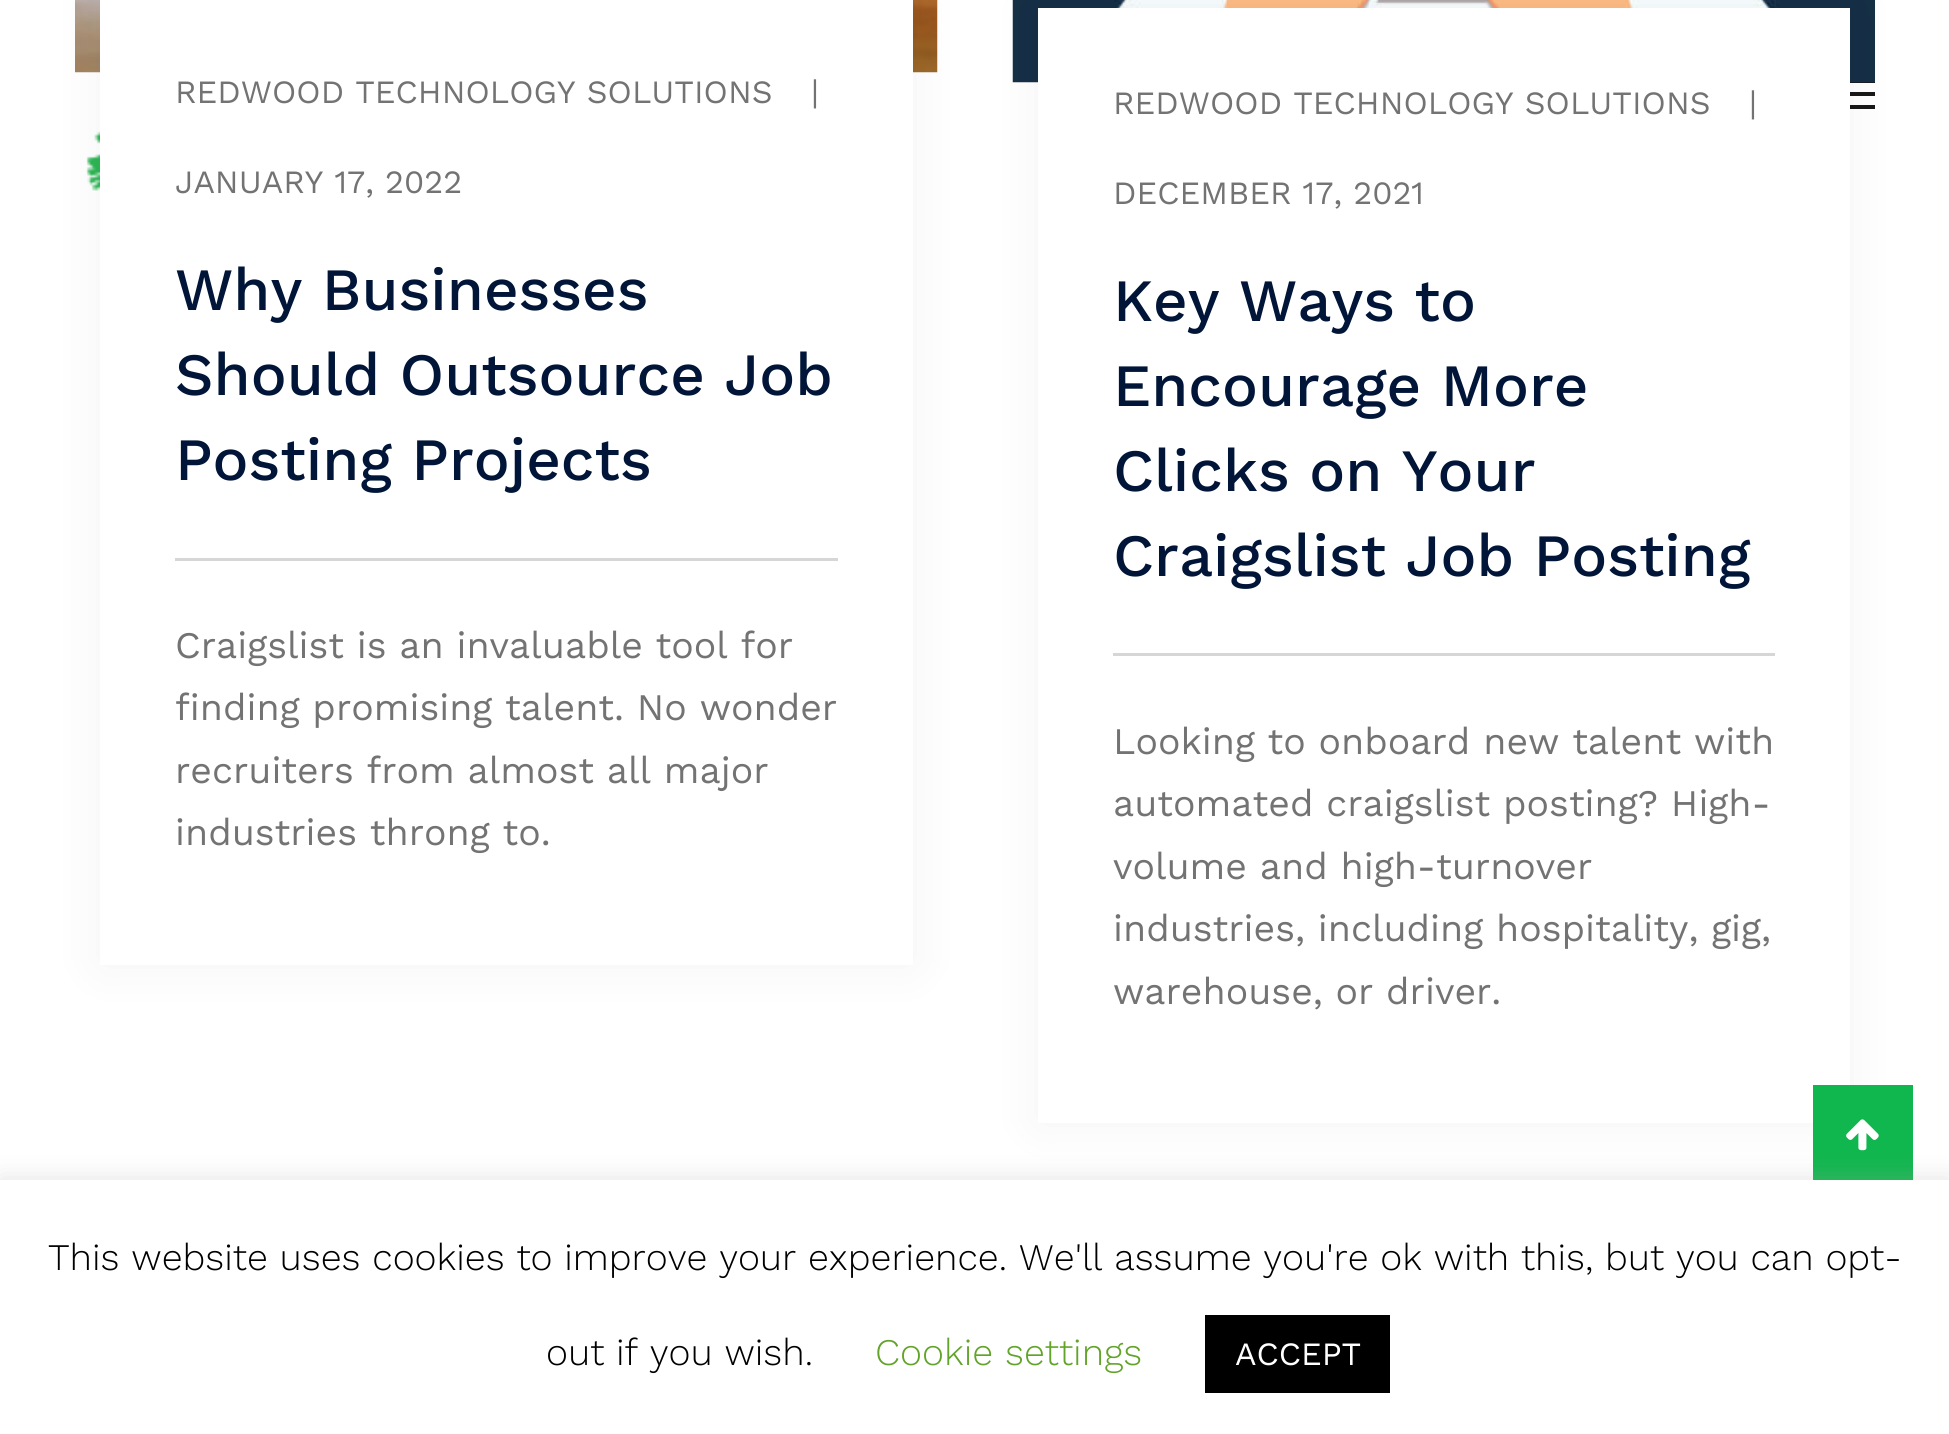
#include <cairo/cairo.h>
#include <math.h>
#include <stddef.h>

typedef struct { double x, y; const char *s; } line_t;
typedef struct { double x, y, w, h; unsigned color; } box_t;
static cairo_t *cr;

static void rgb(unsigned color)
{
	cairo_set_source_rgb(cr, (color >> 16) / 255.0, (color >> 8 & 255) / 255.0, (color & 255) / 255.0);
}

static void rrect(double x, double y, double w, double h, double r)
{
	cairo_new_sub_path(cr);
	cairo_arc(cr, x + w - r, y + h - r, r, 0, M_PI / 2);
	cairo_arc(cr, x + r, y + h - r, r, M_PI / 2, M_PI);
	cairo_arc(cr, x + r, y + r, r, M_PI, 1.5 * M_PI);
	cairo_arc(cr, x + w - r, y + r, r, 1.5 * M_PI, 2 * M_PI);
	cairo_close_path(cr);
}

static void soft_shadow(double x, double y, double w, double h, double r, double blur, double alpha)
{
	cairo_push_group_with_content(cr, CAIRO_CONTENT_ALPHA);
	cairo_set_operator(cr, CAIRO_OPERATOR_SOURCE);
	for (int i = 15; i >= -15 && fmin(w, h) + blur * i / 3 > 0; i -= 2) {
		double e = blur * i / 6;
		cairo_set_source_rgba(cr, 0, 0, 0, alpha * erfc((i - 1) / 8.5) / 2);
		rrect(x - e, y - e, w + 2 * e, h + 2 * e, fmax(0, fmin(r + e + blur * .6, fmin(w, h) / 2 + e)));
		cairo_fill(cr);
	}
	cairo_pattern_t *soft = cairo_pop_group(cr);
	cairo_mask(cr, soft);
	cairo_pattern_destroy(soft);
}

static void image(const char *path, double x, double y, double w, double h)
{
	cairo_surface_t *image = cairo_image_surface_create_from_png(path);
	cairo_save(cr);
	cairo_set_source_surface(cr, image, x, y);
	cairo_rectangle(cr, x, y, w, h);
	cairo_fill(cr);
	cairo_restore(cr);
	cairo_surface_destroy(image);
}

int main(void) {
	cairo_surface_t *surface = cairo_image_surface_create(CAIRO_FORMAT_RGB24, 1949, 1434);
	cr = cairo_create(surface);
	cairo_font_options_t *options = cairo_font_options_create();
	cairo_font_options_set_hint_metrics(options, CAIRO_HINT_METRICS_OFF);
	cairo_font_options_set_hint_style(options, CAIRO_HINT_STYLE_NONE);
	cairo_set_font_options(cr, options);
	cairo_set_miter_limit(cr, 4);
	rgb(0xffffff);
	cairo_paint(cr);
	rgb(0x181818);
	cairo_new_path(cr);
	cairo_move_to(cr, 1805, 83);
	cairo_line_to(cr, 1805, 78);
	cairo_line_to(cr, 1875, 78);
	cairo_line_to(cr, 1875, 83);
	cairo_close_path(cr);
	cairo_move_to(cr, 1805, 96);
	cairo_line_to(cr, 1805, 92);
	cairo_line_to(cr, 1875, 92);
	cairo_line_to(cr, 1875, 96);
	cairo_close_path(cr);
	cairo_move_to(cr, 1805, 109);
	cairo_line_to(cr, 1805, 105);
	cairo_line_to(cr, 1875, 105);
	cairo_line_to(cr, 1875, 109);
	cairo_close_path(cr);
	cairo_fill(cr);
	image("img/1.png", 86, 131, 14, 60);
	image("img/2.png", 75, 0, 863, 73);
	rgb(0x000000);
	soft_shadow(100, -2, 813, 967, 0, 25, 0.05);
	rgb(0xffffff);
	cairo_rectangle(cr, 100, 0, 813, 965);
	cairo_fill(cr);
	rgb(0xd6d6d6);
	cairo_rectangle(cr, 175, 558, 663, 3);
	cairo_fill(cr);
	image("img/3.png", 1012, 0, 863, 83);
	rgb(0x000000);
	soft_shadow(1038, 8, 812, 1115, 0, 25, 0.05);
	{
		static const box_t items[] = {
			{1038, 8, 812, 1115, 0xffffff},
			{1113, 653, 662, 3, 0xd6d6d6},
			{1813, 1085, 100, 95, 0x10b64e},
		};
		for (size_t i = 0; i < sizeof items / sizeof *items; i++) {
			rgb(items[i].color);
			cairo_rectangle(cr, items[i].x, items[i].y, items[i].w, items[i].h);
			cairo_fill(cr);
		}
	}
	image("img/4.png", 1846, 1119, 33, 32);
	rgb(0xacabab);
	soft_shadow(0, 1178, 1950, 255, 0, 12.5, 0.3);
	rgb(0xffffff);
	cairo_rectangle(cr, 0, 1180, 1949, 254);
	cairo_fill(cr);
	rgb(0x000000);
	cairo_rectangle(cr, 1205, 1315, 185, 78);
	cairo_fill(cr);
	cairo_select_font_face(cr, "Work Sans", CAIRO_FONT_SLANT_NORMAL, CAIRO_FONT_WEIGHT_NORMAL);
	cairo_set_font_size(cr, 32.5);
	rgb(0x737373);
	{
		static const line_t items[] = {
			{175, 103, "REDWOOD TECHNOLOGY SOLUTIONS"},
			{811, 103, "|"},
			{175, 193, "JANUARY 17, 2022"},
		};
		for (size_t i = 0; i < sizeof items / sizeof *items; i++) {
			cairo_move_to(cr, items[i].x, items[i].y);
			cairo_show_text(cr, items[i].s);
		}
	}
	cairo_select_font_face(cr, "Work Sans Medium", CAIRO_FONT_SLANT_NORMAL, CAIRO_FONT_WEIGHT_NORMAL);
	cairo_set_font_size(cr, 60);
	rgb(0x001538);
	{
		static const line_t items[] = {
			{175, 310, "Why Businesses"},
			{175, 395, "Should Outsource Job"},
			{175, 480, "Posting Projects"},
		};
		for (size_t i = 0; i < sizeof items / sizeof *items; i++) {
			cairo_move_to(cr, items[i].x, items[i].y);
			cairo_show_text(cr, items[i].s);
		}
	}
	cairo_select_font_face(cr, "Work Sans", CAIRO_FONT_SLANT_NORMAL, CAIRO_FONT_WEIGHT_NORMAL);
	cairo_set_font_size(cr, 37.5);
	rgb(0x737373);
	{
		static const line_t items[] = {
			{175, 658, "Craigslist is an invaluable tool for"},
			{175, 720, "finding promising talent. No wonder"},
			{175, 783, "recruiters from almost all major"},
			{175, 845, "industries throng to."},
		};
		for (size_t i = 0; i < sizeof items / sizeof *items; i++) {
			cairo_move_to(cr, items[i].x, items[i].y);
			cairo_show_text(cr, items[i].s);
		}
	}
	cairo_set_font_size(cr, 32.5);
	{
		static const line_t items[] = {
			{1113, 114, "REDWOOD TECHNOLOGY SOLUTIONS"},
			{1749, 114, "|"},
			{1113, 204, "DECEMBER 17, 2021"},
		};
		for (size_t i = 0; i < sizeof items / sizeof *items; i++) {
			cairo_move_to(cr, items[i].x, items[i].y);
			cairo_show_text(cr, items[i].s);
		}
	}
	cairo_select_font_face(cr, "Work Sans Medium", CAIRO_FONT_SLANT_NORMAL, CAIRO_FONT_WEIGHT_NORMAL);
	cairo_set_font_size(cr, 60);
	rgb(0x001538);
	{
		static const line_t items[] = {
			{1113, 321, "Key Ways to"},
			{1113, 406, "Encourage More"},
			{1113, 491, "Clicks on Your"},
			{1113, 576, "Craigslist Job Posting"},
		};
		for (size_t i = 0; i < sizeof items / sizeof *items; i++) {
			cairo_move_to(cr, items[i].x, items[i].y);
			cairo_show_text(cr, items[i].s);
		}
	}
	cairo_select_font_face(cr, "Work Sans", CAIRO_FONT_SLANT_NORMAL, CAIRO_FONT_WEIGHT_NORMAL);
	cairo_set_font_size(cr, 37.5);
	rgb(0x737373);
	{
		static const line_t items[] = {
			{1113, 754, "Looking to onboard new talent with"},
			{1113, 816, "automated craigslist posting? High-"},
			{1113, 879, "volume and high-turnover"},
			{1113, 941, "industries, including hospitality, gig,"},
			{1113, 1004, "warehouse, or driver."},
		};
		for (size_t i = 0; i < sizeof items / sizeof *items; i++) {
			cairo_move_to(cr, items[i].x, items[i].y);
			cairo_show_text(cr, items[i].s);
		}
	}
	cairo_select_font_face(cr, "Work Sans Light", CAIRO_FONT_SLANT_NORMAL, CAIRO_FONT_WEIGHT_NORMAL);
	rgb(0x000000);
	cairo_move_to(cr, 48, 1270);
	cairo_show_text(cr, "This website uses cookies to improve your experience. We'll assume you're ok with this, but you can opt-");
	cairo_move_to(cr, 546, 1365);
	cairo_show_text(cr, "out if you wish.");
	rgb(0x62a329);
	cairo_move_to(cr, 875, 1365);
	cairo_show_text(cr, "Cookie settings");
	cairo_select_font_face(cr, "Work Sans", CAIRO_FONT_SLANT_NORMAL, CAIRO_FONT_WEIGHT_NORMAL);
	cairo_set_font_size(cr, 32.5);
	rgb(0xffffff);
	cairo_move_to(cr, 1235, 1365);
	cairo_show_text(cr, "ACCEPT");
	cairo_surface_write_to_png(surface, "page.png");
	cairo_font_options_destroy(options);
	cairo_destroy(cr);
	cairo_surface_destroy(surface);
	return 0;
}
